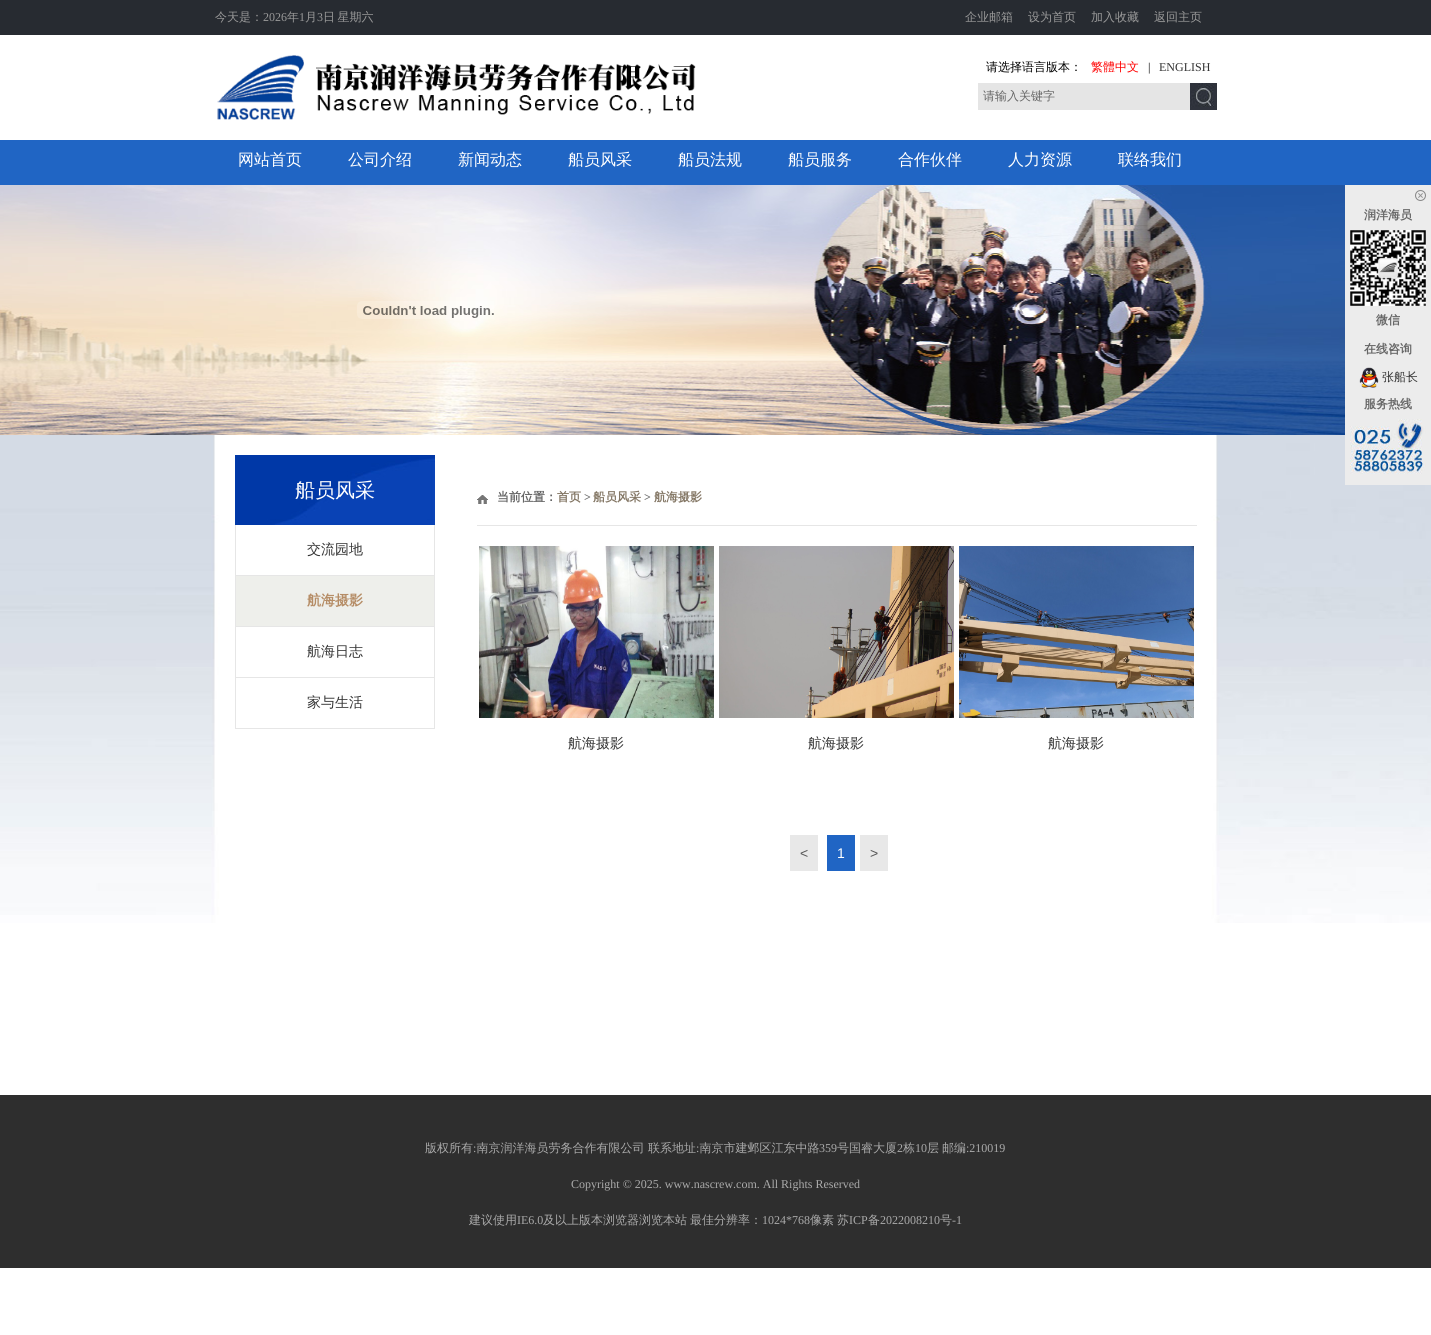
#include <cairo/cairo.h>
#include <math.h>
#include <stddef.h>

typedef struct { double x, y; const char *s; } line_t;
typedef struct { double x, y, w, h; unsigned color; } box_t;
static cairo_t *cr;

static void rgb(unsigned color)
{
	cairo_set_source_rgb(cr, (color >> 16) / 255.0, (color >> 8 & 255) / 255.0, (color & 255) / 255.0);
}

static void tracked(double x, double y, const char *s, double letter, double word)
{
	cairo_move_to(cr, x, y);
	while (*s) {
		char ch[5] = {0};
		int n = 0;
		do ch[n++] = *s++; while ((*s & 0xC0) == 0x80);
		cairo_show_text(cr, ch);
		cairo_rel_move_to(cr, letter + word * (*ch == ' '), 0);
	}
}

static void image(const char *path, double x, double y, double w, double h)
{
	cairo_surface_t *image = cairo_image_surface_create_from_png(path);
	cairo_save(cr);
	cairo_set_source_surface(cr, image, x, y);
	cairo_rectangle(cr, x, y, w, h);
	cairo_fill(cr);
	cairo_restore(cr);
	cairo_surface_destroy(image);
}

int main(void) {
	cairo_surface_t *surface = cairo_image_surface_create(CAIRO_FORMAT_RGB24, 1431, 1335);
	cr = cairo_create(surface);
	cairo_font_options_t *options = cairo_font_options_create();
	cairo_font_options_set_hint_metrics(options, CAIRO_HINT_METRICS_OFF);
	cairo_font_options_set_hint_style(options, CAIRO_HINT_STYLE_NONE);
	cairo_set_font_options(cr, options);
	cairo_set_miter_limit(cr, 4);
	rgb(0xffffff);
	cairo_paint(cr);
	rgb(0x272b31);
	cairo_rectangle(cr, 0, 0, 1431, 35);
	cairo_fill(cr);
	image("img/1.png", 217, 55, 479, 65);
	rgb(0xe5e5e5);
	cairo_rectangle(cr, 978, 83, 212, 27);
	cairo_fill(cr);
	image("img/2.png", 1190, 83, 27, 27);
	rgb(0x2065c4);
	cairo_rectangle(cr, 0, 140, 1431, 45);
	cairo_fill(cr);
	image("img/3.png", 0, 185, 1345, 250);
	image("img/4.png", 357, 301, 137, 18);
	image("img/9.png", 0, 435, 1431, 488);
	rgb(0xececec);
	cairo_rectangle(cr, 1345, 185, 86, 300);
	cairo_fill(cr);
	image("img/5.png", 1415, 190, 11, 11);
	image("img/6.png", 1350, 230, 76, 76);
	image("img/7.png", 1359, 367, 20, 21);
	image("img/8.png", 1350, 419, 76, 55);
	image("img/10.png", 235, 455, 200, 70);
	{
		static const box_t items[] = {
			{434, 525, 1, 204, 0xe6e6e6},
			{235, 525, 1, 204, 0xe6e6e6},
			{236, 575, 198, 1, 0xe6e6e6},
			{236, 576, 198, 50, 0xeeefeb},
			{236, 626, 198, 1, 0xe6e6e6},
			{236, 677, 198, 1, 0xe6e6e6},
			{236, 728, 198, 1, 0xe6e6e6},
		};
		for (size_t i = 0; i < sizeof items / sizeof *items; i++) {
			rgb(items[i].color);
			cairo_rectangle(cr, items[i].x, items[i].y, items[i].w, items[i].h);
			cairo_fill(cr);
		}
	}
	image("img/11.png", 477, 495, 11, 9);
	cairo_rectangle(cr, 477, 525, 720, 1);
	cairo_fill(cr);
	image("img/12.png", 479, 546, 235, 172);
	image("img/13.png", 719, 546, 235, 172);
	image("img/14.png", 959, 546, 235, 172);
	{
		static const box_t items[] = {
			{790, 835, 28, 36, 0xe8e8e8},
			{827, 835, 28, 36, 0x2065c4},
			{860, 835, 28, 36, 0xe8e8e8},
			{0, 1095, 1431, 173, 0x2e2e2e},
		};
		for (size_t i = 0; i < sizeof items / sizeof *items; i++) {
			rgb(items[i].color);
			cairo_rectangle(cr, items[i].x, items[i].y, items[i].w, items[i].h);
			cairo_fill(cr);
		}
	}
	cairo_select_font_face(cr, "WenQuanYi Zen Hei Medium", CAIRO_FONT_SLANT_NORMAL, CAIRO_FONT_WEIGHT_NORMAL);
	cairo_set_font_size(cr, 12);
	rgb(0x999999);
	cairo_move_to(cr, 215, 21);
	cairo_show_text(cr, "今天是：");
	cairo_select_font_face(cr, "Liberation Serif", CAIRO_FONT_SLANT_NORMAL, CAIRO_FONT_WEIGHT_NORMAL);
	cairo_move_to(cr, 263, 21);
	cairo_show_text(cr, "2026");
	cairo_select_font_face(cr, "WenQuanYi Zen Hei Medium", CAIRO_FONT_SLANT_NORMAL, CAIRO_FONT_WEIGHT_NORMAL);
	cairo_move_to(cr, 287, 21);
	cairo_show_text(cr, "年");
	cairo_select_font_face(cr, "Liberation Serif", CAIRO_FONT_SLANT_NORMAL, CAIRO_FONT_WEIGHT_NORMAL);
	cairo_move_to(cr, 299, 21);
	cairo_show_text(cr, "1");
	cairo_select_font_face(cr, "WenQuanYi Zen Hei Medium", CAIRO_FONT_SLANT_NORMAL, CAIRO_FONT_WEIGHT_NORMAL);
	cairo_move_to(cr, 305, 21);
	cairo_show_text(cr, "月");
	cairo_select_font_face(cr, "Liberation Serif", CAIRO_FONT_SLANT_NORMAL, CAIRO_FONT_WEIGHT_NORMAL);
	cairo_move_to(cr, 317, 21);
	cairo_show_text(cr, "3");
	cairo_select_font_face(cr, "WenQuanYi Zen Hei Medium", CAIRO_FONT_SLANT_NORMAL, CAIRO_FONT_WEIGHT_NORMAL);
	tracked(323, 21, "日 星期六", 0, -1);
	{
		static const line_t items[] = {
			{965, 21, "企业邮箱"},
			{1028, 21, "设为首页"},
			{1091, 21, "加入收藏"},
			{1154, 21, "返回主页"},
		};
		for (size_t i = 0; i < sizeof items / sizeof *items; i++) {
			cairo_move_to(cr, items[i].x, items[i].y);
			cairo_show_text(cr, items[i].s);
		}
	}
	rgb(0x000000);
	cairo_move_to(cr, 986, 71);
	cairo_show_text(cr, "请选择语言版本：");
	rgb(0xff0000);
	cairo_move_to(cr, 1091, 71);
	cairo_show_text(cr, "繁體中文");
	cairo_select_font_face(cr, "Liberation Serif", CAIRO_FONT_SLANT_NORMAL, CAIRO_FONT_WEIGHT_NORMAL);
	rgb(0x000000);
	cairo_move_to(cr, 1148, 71);
	cairo_show_text(cr, "|");
	rgb(0x333333);
	cairo_move_to(cr, 1159, 71);
	cairo_show_text(cr, "ENGLISH");
	cairo_select_font_face(cr, "WenQuanYi Zen Hei Medium", CAIRO_FONT_SLANT_NORMAL, CAIRO_FONT_WEIGHT_NORMAL);
	rgb(0x666666);
	cairo_move_to(cr, 983, 100);
	cairo_show_text(cr, "请输入关键字");
	cairo_set_font_size(cr, 16);
	rgb(0xffffff);
	{
		static const line_t items[] = {
			{238, 165, "网站首页"},
			{348, 165, "公司介绍"},
			{458, 165, "新闻动态"},
			{568, 165, "船员风采"},
			{678, 165, "船员法规"},
			{788, 165, "船员服务"},
			{898, 165, "合作伙伴"},
			{1008, 165, "人力资源"},
			{1118, 165, "联络我们"},
		};
		for (size_t i = 0; i < sizeof items / sizeof *items; i++) {
			cairo_move_to(cr, items[i].x, items[i].y);
			cairo_show_text(cr, items[i].s);
		}
	}
	cairo_select_font_face(cr, "WenQuanYi Zen Hei", CAIRO_FONT_SLANT_NORMAL, CAIRO_FONT_WEIGHT_BOLD);
	cairo_set_font_size(cr, 12);
	rgb(0x666666);
	{
		static const line_t items[] = {
			{1364, 219, "润洋海员"},
			{1376, 324, "微信"},
			{1364, 353, "在线咨询"},
		};
		for (size_t i = 0; i < sizeof items / sizeof *items; i++) {
			cairo_move_to(cr, items[i].x, items[i].y);
			cairo_show_text(cr, items[i].s);
		}
	}
	cairo_select_font_face(cr, "WenQuanYi Zen Hei Medium", CAIRO_FONT_SLANT_NORMAL, CAIRO_FONT_WEIGHT_NORMAL);
	rgb(0x333333);
	cairo_move_to(cr, 1382, 381);
	cairo_show_text(cr, "张船长");
	cairo_select_font_face(cr, "WenQuanYi Zen Hei", CAIRO_FONT_SLANT_NORMAL, CAIRO_FONT_WEIGHT_BOLD);
	rgb(0x666666);
	cairo_move_to(cr, 1364, 408);
	cairo_show_text(cr, "服务热线");
	cairo_select_font_face(cr, "WenQuanYi Zen Hei Medium", CAIRO_FONT_SLANT_NORMAL, CAIRO_FONT_WEIGHT_NORMAL);
	cairo_set_font_size(cr, 20);
	rgb(0xffffff);
	cairo_move_to(cr, 295, 497);
	cairo_show_text(cr, "船员风采");
	cairo_set_font_size(cr, 14);
	rgb(0x333333);
	cairo_move_to(cr, 307, 554);
	cairo_show_text(cr, "交流园地");
	cairo_select_font_face(cr, "WenQuanYi Zen Hei", CAIRO_FONT_SLANT_NORMAL, CAIRO_FONT_WEIGHT_BOLD);
	rgb(0xb58c65);
	cairo_move_to(cr, 307, 605);
	cairo_show_text(cr, "航海摄影");
	cairo_select_font_face(cr, "WenQuanYi Zen Hei Medium", CAIRO_FONT_SLANT_NORMAL, CAIRO_FONT_WEIGHT_NORMAL);
	rgb(0x333333);
	cairo_move_to(cr, 307, 656);
	cairo_show_text(cr, "航海日志");
	cairo_move_to(cr, 307, 707);
	cairo_show_text(cr, "家与生活");
	cairo_select_font_face(cr, "WenQuanYi Zen Hei", CAIRO_FONT_SLANT_NORMAL, CAIRO_FONT_WEIGHT_BOLD);
	cairo_set_font_size(cr, 12);
	rgb(0x666666);
	cairo_move_to(cr, 497, 501);
	cairo_show_text(cr, "当前位置：");
	rgb(0x847765);
	cairo_move_to(cr, 557, 501);
	cairo_show_text(cr, "首页");
	cairo_select_font_face(cr, "Liberation Serif", CAIRO_FONT_SLANT_NORMAL, CAIRO_FONT_WEIGHT_BOLD);
	rgb(0x666666);
	cairo_move_to(cr, 584, 501);
	cairo_show_text(cr, ">");
	cairo_select_font_face(cr, "WenQuanYi Zen Hei", CAIRO_FONT_SLANT_NORMAL, CAIRO_FONT_WEIGHT_BOLD);
	rgb(0x847765);
	cairo_move_to(cr, 593, 501);
	cairo_show_text(cr, "船员风采");
	cairo_select_font_face(cr, "Liberation Serif", CAIRO_FONT_SLANT_NORMAL, CAIRO_FONT_WEIGHT_BOLD);
	rgb(0x666666);
	cairo_move_to(cr, 644, 501);
	cairo_show_text(cr, ">");
	cairo_select_font_face(cr, "WenQuanYi Zen Hei", CAIRO_FONT_SLANT_NORMAL, CAIRO_FONT_WEIGHT_BOLD);
	rgb(0x847765);
	cairo_move_to(cr, 654, 501);
	cairo_show_text(cr, "航海摄影");
	cairo_select_font_face(cr, "WenQuanYi Zen Hei Medium", CAIRO_FONT_SLANT_NORMAL, CAIRO_FONT_WEIGHT_NORMAL);
	cairo_set_font_size(cr, 14);
	rgb(0x333333);
	{
		static const line_t items[] = {
			{568, 748, "航海摄影"},
			{808, 748, "航海摄影"},
			{1048, 748, "航海摄影"},
		};
		for (size_t i = 0; i < sizeof items / sizeof *items; i++) {
			cairo_move_to(cr, items[i].x, items[i].y);
			cairo_show_text(cr, items[i].s);
		}
	}
	cairo_select_font_face(cr, "Liberation Sans", CAIRO_FONT_SLANT_NORMAL, CAIRO_FONT_WEIGHT_NORMAL);
	rgb(0x565656);
	cairo_move_to(cr, 800, 858);
	cairo_show_text(cr, "<");
	rgb(0xffffff);
	cairo_move_to(cr, 837, 858);
	cairo_show_text(cr, "1");
	rgb(0x565656);
	cairo_move_to(cr, 870, 858);
	cairo_show_text(cr, ">");
	cairo_select_font_face(cr, "WenQuanYi Zen Hei Medium", CAIRO_FONT_SLANT_NORMAL, CAIRO_FONT_WEIGHT_NORMAL);
	cairo_set_font_size(cr, 12);
	rgb(0xaaaaaa);
	cairo_move_to(cr, 425, 1152);
	cairo_show_text(cr, "版权所有 南京润洋海员劳务合作有限公司");
	cairo_move_to(cr, 648, 1152);
	cairo_show_text(cr, "联系地址 南京市建邺区江东中路");
	cairo_select_font_face(cr, "Liberation Serif", CAIRO_FONT_SLANT_NORMAL, CAIRO_FONT_WEIGHT_NORMAL);
	cairo_move_to(cr, 819, 1152);
	cairo_show_text(cr, "359");
	cairo_select_font_face(cr, "WenQuanYi Zen Hei Medium", CAIRO_FONT_SLANT_NORMAL, CAIRO_FONT_WEIGHT_NORMAL);
	cairo_move_to(cr, 837, 1152);
	cairo_show_text(cr, "号国睿大厦");
	cairo_select_font_face(cr, "Liberation Serif", CAIRO_FONT_SLANT_NORMAL, CAIRO_FONT_WEIGHT_NORMAL);
	cairo_move_to(cr, 897, 1152);
	cairo_show_text(cr, "2");
	cairo_select_font_face(cr, "WenQuanYi Zen Hei Medium", CAIRO_FONT_SLANT_NORMAL, CAIRO_FONT_WEIGHT_NORMAL);
	cairo_move_to(cr, 903, 1152);
	cairo_show_text(cr, "栋");
	cairo_select_font_face(cr, "Liberation Serif", CAIRO_FONT_SLANT_NORMAL, CAIRO_FONT_WEIGHT_NORMAL);
	cairo_move_to(cr, 915, 1152);
	cairo_show_text(cr, "10");
	cairo_select_font_face(cr, "WenQuanYi Zen Hei Medium", CAIRO_FONT_SLANT_NORMAL, CAIRO_FONT_WEIGHT_NORMAL);
	cairo_move_to(cr, 927, 1152);
	cairo_show_text(cr, "层");
	cairo_move_to(cr, 942, 1152);
	cairo_show_text(cr, "邮编");
	cairo_select_font_face(cr, "Liberation Serif", CAIRO_FONT_SLANT_NORMAL, CAIRO_FONT_WEIGHT_NORMAL);
	{
		static const line_t items[] = {
			{966, 1152, ":210019"},
			{473, 1152, ":"},
			{696, 1152, ":"},
			{571, 1188, "Copyright © 2025. www.nascrew.com. All Rights Reserved"},
		};
		for (size_t i = 0; i < sizeof items / sizeof *items; i++) {
			cairo_move_to(cr, items[i].x, items[i].y);
			cairo_show_text(cr, items[i].s);
		}
	}
	cairo_select_font_face(cr, "WenQuanYi Zen Hei Medium", CAIRO_FONT_SLANT_NORMAL, CAIRO_FONT_WEIGHT_NORMAL);
	cairo_move_to(cr, 469, 1224);
	cairo_show_text(cr, "建议使用");
	cairo_select_font_face(cr, "Liberation Serif", CAIRO_FONT_SLANT_NORMAL, CAIRO_FONT_WEIGHT_NORMAL);
	cairo_move_to(cr, 517, 1224);
	cairo_show_text(cr, "IE6.0");
	cairo_select_font_face(cr, "WenQuanYi Zen Hei Medium", CAIRO_FONT_SLANT_NORMAL, CAIRO_FONT_WEIGHT_NORMAL);
	cairo_move_to(cr, 543, 1224);
	cairo_show_text(cr, "及以上版本浏览器浏览本站");
	cairo_move_to(cr, 690, 1224);
	cairo_show_text(cr, "最佳分辨率：");
	cairo_select_font_face(cr, "Liberation Serif", CAIRO_FONT_SLANT_NORMAL, CAIRO_FONT_WEIGHT_NORMAL);
	cairo_move_to(cr, 762, 1224);
	cairo_show_text(cr, "1024*768");
	cairo_select_font_face(cr, "WenQuanYi Zen Hei Medium", CAIRO_FONT_SLANT_NORMAL, CAIRO_FONT_WEIGHT_NORMAL);
	cairo_move_to(cr, 810, 1224);
	cairo_show_text(cr, "像素");
	cairo_move_to(cr, 837, 1224);
	cairo_show_text(cr, "苏");
	cairo_select_font_face(cr, "Liberation Serif", CAIRO_FONT_SLANT_NORMAL, CAIRO_FONT_WEIGHT_NORMAL);
	cairo_move_to(cr, 849, 1224);
	cairo_show_text(cr, "ICP");
	cairo_select_font_face(cr, "WenQuanYi Zen Hei Medium", CAIRO_FONT_SLANT_NORMAL, CAIRO_FONT_WEIGHT_NORMAL);
	cairo_move_to(cr, 868, 1224);
	cairo_show_text(cr, "备");
	cairo_select_font_face(cr, "Liberation Serif", CAIRO_FONT_SLANT_NORMAL, CAIRO_FONT_WEIGHT_NORMAL);
	cairo_move_to(cr, 880, 1224);
	cairo_show_text(cr, "2022008210");
	cairo_select_font_face(cr, "WenQuanYi Zen Hei Medium", CAIRO_FONT_SLANT_NORMAL, CAIRO_FONT_WEIGHT_NORMAL);
	cairo_move_to(cr, 940, 1224);
	cairo_show_text(cr, "号");
	cairo_select_font_face(cr, "Liberation Serif", CAIRO_FONT_SLANT_NORMAL, CAIRO_FONT_WEIGHT_NORMAL);
	cairo_move_to(cr, 952, 1224);
	cairo_show_text(cr, "-1");
	cairo_surface_write_to_png(surface, "page.png");
	cairo_font_options_destroy(options);
	cairo_destroy(cr);
	cairo_surface_destroy(surface);
	return 0;
}
